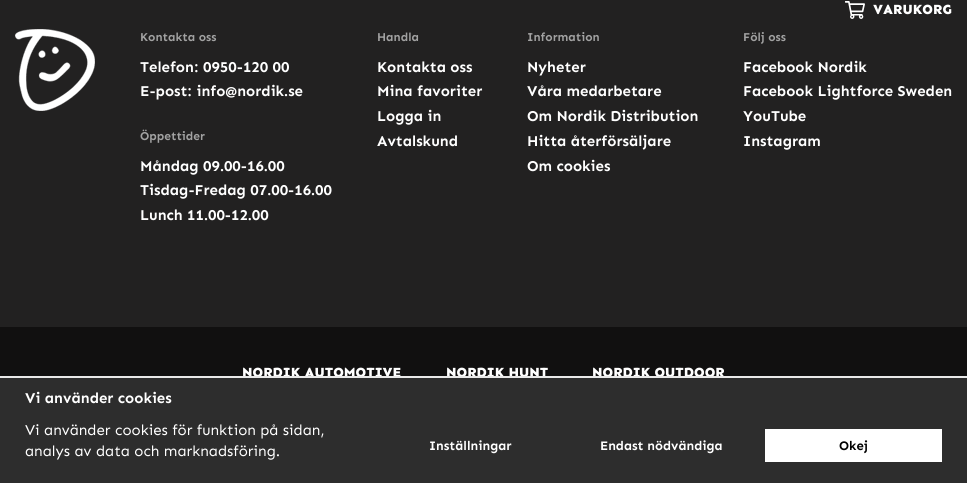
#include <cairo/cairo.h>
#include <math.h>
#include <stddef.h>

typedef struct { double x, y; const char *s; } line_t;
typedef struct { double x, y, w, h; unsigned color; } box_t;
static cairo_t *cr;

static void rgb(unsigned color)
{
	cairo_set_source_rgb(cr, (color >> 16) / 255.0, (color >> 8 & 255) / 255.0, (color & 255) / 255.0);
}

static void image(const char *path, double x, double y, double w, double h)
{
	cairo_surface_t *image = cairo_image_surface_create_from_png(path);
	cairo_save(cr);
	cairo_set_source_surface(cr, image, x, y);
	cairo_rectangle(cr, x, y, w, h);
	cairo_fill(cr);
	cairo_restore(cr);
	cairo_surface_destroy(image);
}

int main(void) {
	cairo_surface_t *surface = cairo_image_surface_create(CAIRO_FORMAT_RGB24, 967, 483);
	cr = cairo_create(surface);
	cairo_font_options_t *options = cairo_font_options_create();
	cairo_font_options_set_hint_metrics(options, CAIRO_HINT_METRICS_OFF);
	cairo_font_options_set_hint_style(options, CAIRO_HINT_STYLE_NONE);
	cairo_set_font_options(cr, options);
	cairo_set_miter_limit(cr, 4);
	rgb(0x222121);
	cairo_paint(cr);
	image("img/1.png", 845, 1, 20, 18);
	image("img/2.png", 15, 29, 80, 82);
	{
		static const box_t items[] = {
			{0, 327, 967, 49, 0x111010},
			{0, 378, 967, 105, 0x2d2d2d},
			{765, 429, 177, 33, 0xffffff},
		};
		for (size_t i = 0; i < sizeof items / sizeof *items; i++) {
			rgb(items[i].color);
			cairo_rectangle(cr, items[i].x, items[i].y, items[i].w, items[i].h);
			cairo_fill(cr);
		}
	}
	cairo_select_font_face(cr, "Sen ExtraBold", CAIRO_FONT_SLANT_NORMAL, CAIRO_FONT_WEIGHT_NORMAL);
	cairo_set_font_size(cr, 14);
	cairo_move_to(cr, 873, 14);
	cairo_show_text(cr, "VARUKORG");
	cairo_select_font_face(cr, "Sen", CAIRO_FONT_SLANT_NORMAL, CAIRO_FONT_WEIGHT_BOLD);
	cairo_set_font_size(cr, 12);
	rgb(0xa2a2a2);
	cairo_move_to(cr, 140, 41);
	cairo_show_text(cr, "Kontakta oss");
	cairo_set_font_size(cr, 15);
	rgb(0xffffff);
	cairo_move_to(cr, 140, 72);
	cairo_show_text(cr, "Telefon: 0950-120 00");
	cairo_move_to(cr, 140, 96);
	cairo_show_text(cr, "E-post: info@nordik.se");
	cairo_set_font_size(cr, 12);
	rgb(0xa2a2a2);
	cairo_move_to(cr, 140, 140);
	cairo_show_text(cr, "Öppettider");
	cairo_set_font_size(cr, 15);
	rgb(0xffffff);
	{
		static const line_t items[] = {
			{140, 171, "Måndag 09.00-16.00"},
			{140, 195, "Tisdag-Fredag 07.00-16.00"},
			{140, 220, "Lunch 11.00-12.00"},
		};
		for (size_t i = 0; i < sizeof items / sizeof *items; i++) {
			cairo_move_to(cr, items[i].x, items[i].y);
			cairo_show_text(cr, items[i].s);
		}
	}
	cairo_set_font_size(cr, 12);
	rgb(0xa2a2a2);
	cairo_move_to(cr, 377, 41);
	cairo_show_text(cr, "Handla");
	cairo_set_font_size(cr, 15);
	rgb(0xffffff);
	{
		static const line_t items[] = {
			{377, 72, "Kontakta oss"},
			{377, 96, "Mina favoriter"},
			{377, 121, "Logga in"},
			{377, 146, "Avtalskund"},
		};
		for (size_t i = 0; i < sizeof items / sizeof *items; i++) {
			cairo_move_to(cr, items[i].x, items[i].y);
			cairo_show_text(cr, items[i].s);
		}
	}
	cairo_set_font_size(cr, 12);
	rgb(0xa2a2a2);
	cairo_move_to(cr, 527, 41);
	cairo_show_text(cr, "Information");
	cairo_set_font_size(cr, 15);
	rgb(0xffffff);
	{
		static const line_t items[] = {
			{527, 72, "Nyheter"},
			{527, 96, "Våra medarbetare"},
			{527, 121, "Om Nordik Distribution"},
			{527, 146, "Hitta återförsäljare"},
			{527, 171, "Om cookies"},
		};
		for (size_t i = 0; i < sizeof items / sizeof *items; i++) {
			cairo_move_to(cr, items[i].x, items[i].y);
			cairo_show_text(cr, items[i].s);
		}
	}
	cairo_set_font_size(cr, 12);
	rgb(0xa2a2a2);
	cairo_move_to(cr, 743, 41);
	cairo_show_text(cr, "Följ oss");
	cairo_set_font_size(cr, 15);
	rgb(0xffffff);
	{
		static const line_t items[] = {
			{743, 72, "Facebook Nordik"},
			{743, 96, "Facebook Lightforce Sweden"},
			{743, 121, "YouTube"},
			{743, 146, "Instagram"},
		};
		for (size_t i = 0; i < sizeof items / sizeof *items; i++) {
			cairo_move_to(cr, items[i].x, items[i].y);
			cairo_show_text(cr, items[i].s);
		}
	}
	cairo_select_font_face(cr, "Sen ExtraBold", CAIRO_FONT_SLANT_NORMAL, CAIRO_FONT_WEIGHT_NORMAL);
	cairo_set_font_size(cr, 14);
	{
		static const line_t items[] = {
			{242, 377, "NORDIK AUTOMOTIVE"},
			{446, 377, "NORDIK HUNT"},
			{592, 377, "NORDIK OUTDOOR"},
		};
		for (size_t i = 0; i < sizeof items / sizeof *items; i++) {
			cairo_move_to(cr, items[i].x, items[i].y);
			cairo_show_text(cr, items[i].s);
		}
	}
	rgb(0xe9e9e9);
	cairo_rectangle(cr, 0, 376, 967, 2);
	cairo_fill(cr);
	cairo_select_font_face(cr, "Sen", CAIRO_FONT_SLANT_NORMAL, CAIRO_FONT_WEIGHT_BOLD);
	cairo_set_font_size(cr, 15);
	rgb(0xffffff);
	cairo_move_to(cr, 25, 403);
	cairo_show_text(cr, "Vi använder cookies");
	cairo_select_font_face(cr, "Sen", CAIRO_FONT_SLANT_NORMAL, CAIRO_FONT_WEIGHT_NORMAL);
	cairo_move_to(cr, 25, 435);
	cairo_show_text(cr, "Vi använder cookies för funktion på sidan,");
	cairo_move_to(cr, 25, 456);
	cairo_show_text(cr, "analys av data och marknadsföring.");
	cairo_select_font_face(cr, "Sen", CAIRO_FONT_SLANT_NORMAL, CAIRO_FONT_WEIGHT_BOLD);
	cairo_set_font_size(cr, 13);
	cairo_move_to(cr, 429, 450);
	cairo_show_text(cr, "Inställningar");
	cairo_move_to(cr, 600, 450);
	cairo_show_text(cr, "Endast nödvändiga");
	rgb(0x000000);
	cairo_move_to(cr, 839, 450);
	cairo_show_text(cr, "Okej");
	cairo_surface_write_to_png(surface, "page.png");
	cairo_font_options_destroy(options);
	cairo_destroy(cr);
	cairo_surface_destroy(surface);
	return 0;
}
